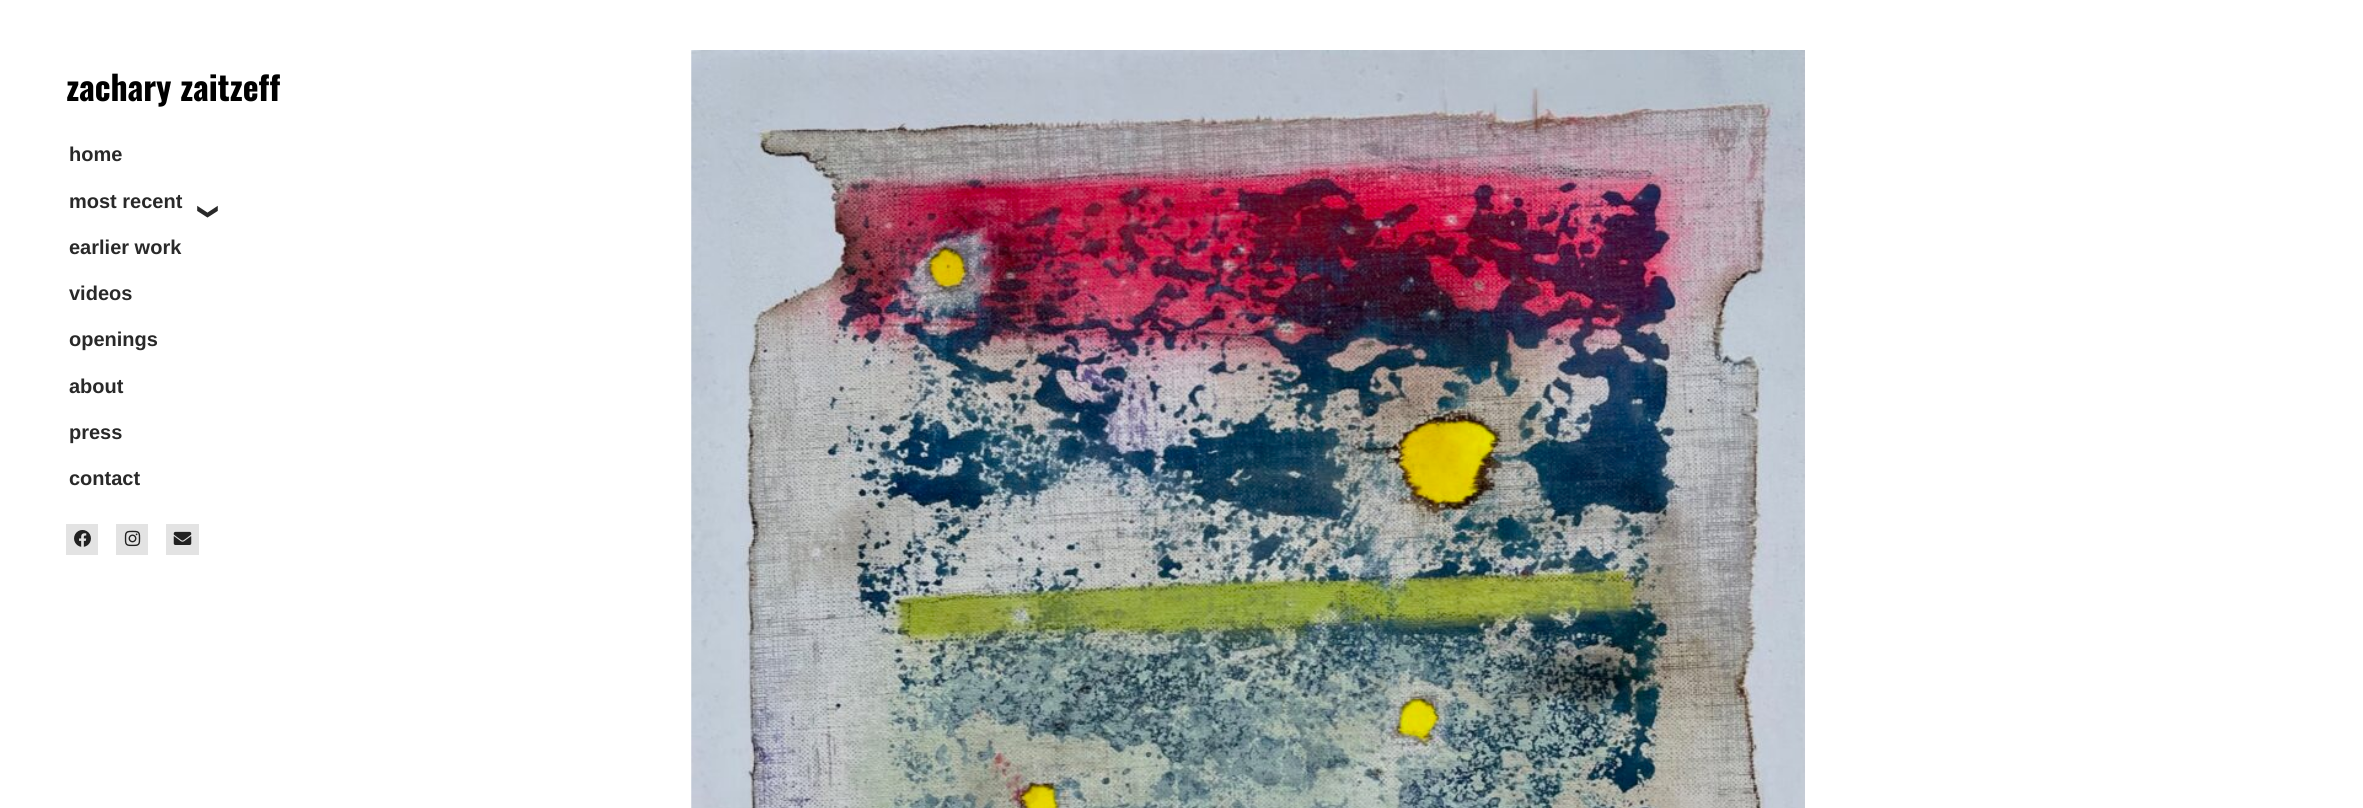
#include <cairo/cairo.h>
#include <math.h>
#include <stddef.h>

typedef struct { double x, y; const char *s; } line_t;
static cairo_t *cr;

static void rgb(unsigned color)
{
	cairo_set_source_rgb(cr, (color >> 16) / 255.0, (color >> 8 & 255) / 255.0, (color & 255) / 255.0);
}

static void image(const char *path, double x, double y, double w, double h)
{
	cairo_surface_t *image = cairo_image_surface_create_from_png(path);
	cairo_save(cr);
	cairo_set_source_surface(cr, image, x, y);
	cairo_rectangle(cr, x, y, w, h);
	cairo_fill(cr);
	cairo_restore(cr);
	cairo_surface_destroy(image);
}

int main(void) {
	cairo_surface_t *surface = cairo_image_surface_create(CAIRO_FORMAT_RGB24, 2363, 808);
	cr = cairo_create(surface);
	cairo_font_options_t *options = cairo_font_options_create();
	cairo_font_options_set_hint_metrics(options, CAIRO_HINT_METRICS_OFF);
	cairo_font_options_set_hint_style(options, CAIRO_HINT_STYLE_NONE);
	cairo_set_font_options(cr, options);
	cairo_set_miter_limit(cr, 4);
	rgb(0xffffff);
	cairo_paint(cr);
	rgb(0xe3e3e3);
	cairo_rectangle(cr, 66, 524, 32, 31);
	cairo_fill(cr);
	image("img/1.png", 74, 530, 17, 17);
	cairo_rectangle(cr, 116, 524, 32, 31);
	cairo_fill(cr);
	image("img/2.png", 124, 530, 17, 17);
	cairo_rectangle(cr, 166, 524, 33, 31);
	cairo_fill(cr);
	image("img/3.png", 173, 531, 19, 14);
	image("img/4.png", 691, 50, 1114, 758);
	cairo_select_font_face(cr, "Oswald", CAIRO_FONT_SLANT_NORMAL, CAIRO_FONT_WEIGHT_BOLD);
	cairo_set_font_size(cr, 33.75);
	rgb(0x000000);
	cairo_move_to(cr, 66, 101);
	cairo_show_text(cr, "zachary zaitzeff");
	cairo_select_font_face(cr, "Liberation Sans", CAIRO_FONT_SLANT_NORMAL, CAIRO_FONT_WEIGHT_BOLD);
	cairo_set_font_size(cr, 20);
	rgb(0x292929);
	cairo_move_to(cr, 69, 161);
	cairo_show_text(cr, "home");
	cairo_move_to(cr, 69, 208);
	cairo_show_text(cr, "most recent");
	cairo_select_font_face(cr, "DejaVu Sans", CAIRO_FONT_SLANT_NORMAL, CAIRO_FONT_WEIGHT_BOLD);
	cairo_save(cr);
	cairo_translate(cr, 202, 203);
	cairo_rotate(cr, 90 * M_PI / 180);
	cairo_move_to(cr, 0, 0);
	cairo_show_text(cr, "❯");
	cairo_restore(cr);
	cairo_select_font_face(cr, "Liberation Sans", CAIRO_FONT_SLANT_NORMAL, CAIRO_FONT_WEIGHT_BOLD);
	{
		static const line_t items[] = {
			{69, 254, "earlier work"},
			{69, 300, "videos"},
			{69, 346, "openings"},
			{69, 393, "about"},
			{69, 439, "press"},
			{69, 485, "contact"},
		};
		for (size_t i = 0; i < sizeof items / sizeof *items; i++) {
			cairo_move_to(cr, items[i].x, items[i].y);
			cairo_show_text(cr, items[i].s);
		}
	}
	cairo_surface_write_to_png(surface, "page.png");
	cairo_font_options_destroy(options);
	cairo_destroy(cr);
	cairo_surface_destroy(surface);
	return 0;
}
